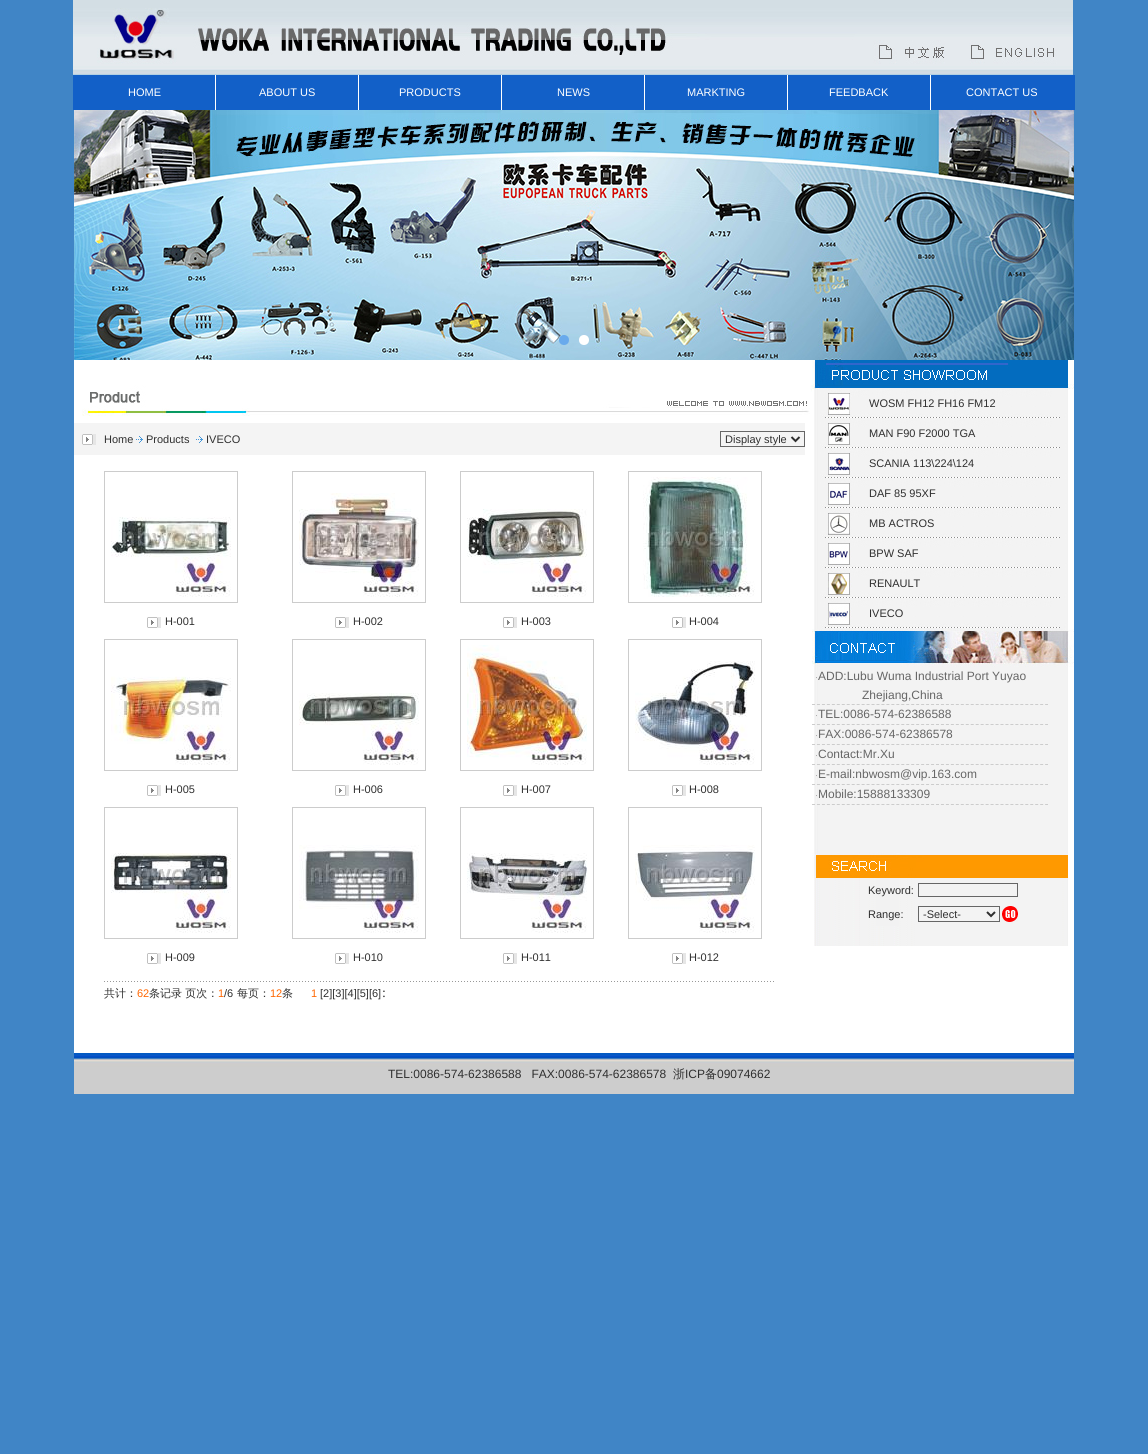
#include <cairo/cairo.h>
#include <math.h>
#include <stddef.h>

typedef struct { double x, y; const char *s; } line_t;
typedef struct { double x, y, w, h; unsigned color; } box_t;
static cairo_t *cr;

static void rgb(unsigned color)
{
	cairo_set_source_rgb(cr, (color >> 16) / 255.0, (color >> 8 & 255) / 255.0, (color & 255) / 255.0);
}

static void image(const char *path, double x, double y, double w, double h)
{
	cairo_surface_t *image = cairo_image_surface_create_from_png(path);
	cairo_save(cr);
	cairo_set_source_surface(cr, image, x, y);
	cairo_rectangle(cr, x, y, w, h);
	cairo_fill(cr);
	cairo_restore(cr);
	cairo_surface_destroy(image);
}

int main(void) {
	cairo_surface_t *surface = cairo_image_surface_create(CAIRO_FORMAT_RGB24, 1148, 1454);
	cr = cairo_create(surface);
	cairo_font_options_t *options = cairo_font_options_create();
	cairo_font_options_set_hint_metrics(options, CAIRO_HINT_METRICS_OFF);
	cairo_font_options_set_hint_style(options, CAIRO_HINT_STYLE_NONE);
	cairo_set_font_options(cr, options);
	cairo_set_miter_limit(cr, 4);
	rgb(0x4085c6);
	cairo_paint(cr);
	image("img/1.png", 73, 0, 1000, 75);
	{
		static const box_t items[] = {
			{73, 75, 1002, 35, 0x1260c8},
			{215, 75, 1, 35, 0xffffff},
			{358, 75, 1, 35, 0xffffff},
			{501, 75, 1, 35, 0xffffff},
			{644, 75, 1, 35, 0xffffff},
			{787, 75, 1, 35, 0xffffff},
			{930, 75, 1, 35, 0xffffff},
		};
		for (size_t i = 0; i < sizeof items / sizeof *items; i++) {
			rgb(items[i].color);
			cairo_rectangle(cr, items[i].x, items[i].y, items[i].w, items[i].h);
			cairo_fill(cr);
		}
	}
	image("img/2.png", 74, 110, 1000, 250);
	rgb(0x69aaec);
	cairo_arc(cr, 564, 340, 5, 0, 2 * M_PI);
	cairo_fill(cr);
	rgb(0xffffff);
	cairo_arc(cr, 584, 340, 5, 0, 2 * M_PI);
	cairo_fill(cr);
	cairo_rectangle(cr, 74, 360, 738, 673);
	cairo_fill(cr);
	image("img/3.png", 82, 385, 730, 31);
	rgb(0xf4f4f4);
	cairo_rectangle(cr, 74, 423, 731, 32);
	cairo_fill(cr);
	image("img/4.png", 82, 434, 14, 11);
	image("img/5.png", 136, 436, 7, 7);
	image("img/5.png", 196, 436, 7, 7);
	cairo_rectangle(cr, 720.5, 431.5, 84, 15);
	rgb(0x666666);
	cairo_set_line_width(cr, 1);
	cairo_stroke(cr);
	cairo_new_path(cr);
	cairo_move_to(cr, 791.5, 437);
	cairo_line_to(cr, 795.5, 441);
	cairo_line_to(cr, 799.5, 437);
	rgb(0x2f2f2f);
	cairo_set_line_width(cr, 2);
	cairo_stroke(cr);
	cairo_rectangle(cr, 104.5, 471.5, 133, 131);
	rgb(0xcccccc);
	cairo_set_line_width(cr, 1);
	cairo_stroke(cr);
	image("img/6.png", 111, 517, 120, 80);
	image("img/4.png", 147, 617, 14, 11);
	cairo_rectangle(cr, 292.5, 471.5, 133, 131);
	cairo_stroke(cr);
	image("img/7.png", 299, 493, 120, 104);
	image("img/4.png", 335, 617, 14, 11);
	cairo_rectangle(cr, 460.5, 471.5, 133, 131);
	cairo_stroke(cr);
	image("img/8.png", 467, 509, 120, 88);
	image("img/4.png", 503, 617, 14, 11);
	cairo_rectangle(cr, 628.5, 471.5, 133, 131);
	cairo_stroke(cr);
	image("img/9.png", 643, 477, 112, 120);
	image("img/4.png", 672, 617, 14, 11);
	cairo_rectangle(cr, 104.5, 639.5, 133, 131);
	cairo_stroke(cr);
	image("img/10.png", 111, 676, 120, 89);
	image("img/4.png", 147, 785, 14, 11);
	cairo_rectangle(cr, 292.5, 639.5, 133, 131);
	cairo_stroke(cr);
	image("img/11.png", 299, 693, 120, 72);
	image("img/4.png", 335, 785, 14, 11);
	cairo_rectangle(cr, 460.5, 639.5, 133, 131);
	cairo_stroke(cr);
	image("img/12.png", 467, 645, 120, 120);
	image("img/4.png", 503, 785, 14, 11);
	cairo_rectangle(cr, 628.5, 639.5, 133, 131);
	cairo_stroke(cr);
	image("img/13.png", 635, 661, 120, 104);
	image("img/4.png", 672, 785, 14, 11);
	cairo_rectangle(cr, 104.5, 807.5, 133, 131);
	cairo_stroke(cr);
	image("img/14.png", 111, 853, 120, 80);
	image("img/4.png", 147, 953, 14, 11);
	cairo_rectangle(cr, 292.5, 807.5, 133, 131);
	cairo_stroke(cr);
	image("img/15.png", 299, 845, 120, 88);
	image("img/4.png", 335, 953, 14, 11);
	cairo_rectangle(cr, 460.5, 807.5, 133, 131);
	cairo_stroke(cr);
	image("img/16.png", 467, 853, 120, 80);
	image("img/4.png", 503, 953, 14, 11);
	cairo_rectangle(cr, 628.5, 807.5, 133, 131);
	cairo_stroke(cr);
	image("img/17.png", 635, 845, 120, 88);
	image("img/4.png", 672, 953, 14, 11);
	image("img/18.png", 104, 981, 670, 1);
	rgb(0xffffff);
	cairo_rectangle(cr, 812, 389, 262, 644);
	cairo_fill(cr);
	image("img/19.png", 812, 360, 262, 29);
	image("img/20.png", 814, 389, 254, 30);
	image("img/21.png", 814, 419, 254, 30);
	image("img/22.png", 814, 449, 254, 30);
	image("img/23.png", 814, 479, 254, 30);
	image("img/24.png", 814, 509, 254, 30);
	image("img/25.png", 814, 539, 254, 30);
	image("img/26.png", 814, 569, 254, 30);
	image("img/27.png", 814, 599, 254, 30);
	image("img/28.png", 812, 629, 262, 38);
	image("img/29.png", 814, 667, 254, 185);
	cairo_new_path(cr);
	cairo_move_to(cr, 812, 704.5);
	cairo_line_to(cr, 1048, 704.5);
	rgb(0xcccccc);
	cairo_set_dash(cr, (double[]){3, 1.96}, 2, 0);
	cairo_stroke(cr);
	cairo_new_path(cr);
	cairo_move_to(cr, 812, 724.5);
	cairo_line_to(cr, 1048, 724.5);
	cairo_stroke(cr);
	cairo_new_path(cr);
	cairo_move_to(cr, 812, 744.5);
	cairo_line_to(cr, 1048, 744.5);
	cairo_stroke(cr);
	cairo_new_path(cr);
	cairo_move_to(cr, 812, 764.5);
	cairo_line_to(cr, 1048, 764.5);
	cairo_stroke(cr);
	cairo_new_path(cr);
	cairo_move_to(cr, 812, 784.5);
	cairo_line_to(cr, 1048, 784.5);
	cairo_stroke(cr);
	cairo_new_path(cr);
	cairo_move_to(cr, 812, 804.5);
	cairo_line_to(cr, 1048, 804.5);
	cairo_stroke(cr);
	image("img/30.png", 812, 852, 256, 26);
	image("img/31.png", 814, 878, 254, 68);
	rgb(0xf2f2f2);
	cairo_rectangle(cr, 876, 878, 23, 48);
	cairo_fill(cr);
	cairo_rectangle(cr, 918.5, 883.5, 99, 13);
	rgb(0x666666);
	cairo_set_dash(cr, NULL, 0, 0);
	cairo_stroke(cr);
	cairo_rectangle(cr, 918.5, 906.5, 81, 15);
	cairo_stroke(cr);
	cairo_new_path(cr);
	cairo_move_to(cr, 987, 912);
	cairo_line_to(cr, 991, 916);
	cairo_line_to(cr, 995, 912);
	rgb(0x2f2f2f);
	cairo_set_line_width(cr, 2);
	cairo_stroke(cr);
	image("img/32.png", 1002, 906, 16, 16);
	rgb(0xffffff);
	cairo_rectangle(cr, 74, 1033, 1000, 20);
	cairo_fill(cr);
	image("img/33.png", 74, 1053, 1000, 41);
	cairo_select_font_face(cr, "Liberation Sans", CAIRO_FONT_SLANT_NORMAL, CAIRO_FONT_WEIGHT_NORMAL);
	cairo_set_font_size(cr, 11);
	{
		static const line_t items[] = {
			{128, 96, "HOME"},
			{259, 96, "ABOUT US"},
			{399, 96, "PRODUCTS"},
			{557, 96, "NEWS"},
			{687, 96, "MARKTING"},
			{829, 96, "FEEDBACK"},
			{966, 96, "CONTACT US"},
		};
		for (size_t i = 0; i < sizeof items / sizeof *items; i++) {
			cairo_move_to(cr, items[i].x, items[i].y);
			cairo_show_text(cr, items[i].s);
		}
	}
	rgb(0x2f2f2f);
	{
		static const line_t items[] = {
			{104, 443, "Home"},
			{146, 443, "Products"},
			{206, 443, "IVECO"},
			{725, 443, "Display style"},
			{165, 625, "H-001"},
			{353, 625, "H-002"},
			{521, 625, "H-003"},
			{689, 625, "H-004"},
			{165, 793, "H-005"},
			{353, 793, "H-006"},
			{521, 793, "H-007"},
			{689, 793, "H-008"},
			{165, 961, "H-009"},
			{353, 961, "H-010"},
			{521, 961, "H-011"},
			{689, 961, "H-012"},
		};
		for (size_t i = 0; i < sizeof items / sizeof *items; i++) {
			cairo_move_to(cr, items[i].x, items[i].y);
			cairo_show_text(cr, items[i].s);
		}
	}
	cairo_select_font_face(cr, "WenQuanYi Zen Hei Medium", CAIRO_FONT_SLANT_NORMAL, CAIRO_FONT_WEIGHT_NORMAL);
	cairo_move_to(cr, 104, 997);
	cairo_show_text(cr, "共计：");
	cairo_select_font_face(cr, "Liberation Sans", CAIRO_FONT_SLANT_NORMAL, CAIRO_FONT_WEIGHT_NORMAL);
	rgb(0xff6600);
	cairo_move_to(cr, 137, 997);
	cairo_show_text(cr, "62");
	cairo_select_font_face(cr, "WenQuanYi Zen Hei Medium", CAIRO_FONT_SLANT_NORMAL, CAIRO_FONT_WEIGHT_NORMAL);
	rgb(0x2f2f2f);
	cairo_move_to(cr, 149, 997);
	cairo_show_text(cr, "条记录 页次：");
	cairo_select_font_face(cr, "Liberation Sans", CAIRO_FONT_SLANT_NORMAL, CAIRO_FONT_WEIGHT_NORMAL);
	rgb(0xff6600);
	cairo_move_to(cr, 218, 997);
	cairo_show_text(cr, "1");
	rgb(0x2f2f2f);
	cairo_move_to(cr, 224, 997);
	cairo_show_text(cr, "/6");
	cairo_select_font_face(cr, "WenQuanYi Zen Hei Medium", CAIRO_FONT_SLANT_NORMAL, CAIRO_FONT_WEIGHT_NORMAL);
	cairo_move_to(cr, 237, 997);
	cairo_show_text(cr, "每页：");
	cairo_select_font_face(cr, "Liberation Sans", CAIRO_FONT_SLANT_NORMAL, CAIRO_FONT_WEIGHT_NORMAL);
	rgb(0xff6600);
	cairo_move_to(cr, 270, 997);
	cairo_show_text(cr, "12");
	cairo_select_font_face(cr, "WenQuanYi Zen Hei Medium", CAIRO_FONT_SLANT_NORMAL, CAIRO_FONT_WEIGHT_NORMAL);
	rgb(0x2f2f2f);
	cairo_move_to(cr, 282, 997);
	cairo_show_text(cr, "条");
	cairo_select_font_face(cr, "Liberation Sans", CAIRO_FONT_SLANT_NORMAL, CAIRO_FONT_WEIGHT_NORMAL);
	rgb(0xff6600);
	cairo_move_to(cr, 311, 997);
	cairo_show_text(cr, "1");
	rgb(0x2f2f2f);
	cairo_move_to(cr, 320, 997);
	cairo_show_text(cr, "[2][3][4][5][6]");
	cairo_select_font_face(cr, "Liberation Serif", CAIRO_FONT_SLANT_NORMAL, CAIRO_FONT_WEIGHT_NORMAL);
	cairo_set_font_size(cr, 14);
	cairo_move_to(cr, 382, 997);
	cairo_show_text(cr, ":");
	cairo_select_font_face(cr, "Liberation Sans", CAIRO_FONT_SLANT_NORMAL, CAIRO_FONT_WEIGHT_NORMAL);
	cairo_set_font_size(cr, 11);
	{
		static const line_t items[] = {
			{869, 407, "WOSM FH12 FH16 FM12"},
			{869, 437, "MAN F90 F2000 TGA"},
			{869, 467, "SCANIA 113\\224\\124"},
			{869, 497, "DAF 85 95XF"},
			{869, 527, "MB ACTROS"},
			{869, 557, "BPW SAF"},
			{869, 587, "RENAULT"},
			{869, 617, "IVECO"},
		};
		for (size_t i = 0; i < sizeof items / sizeof *items; i++) {
			cairo_move_to(cr, items[i].x, items[i].y);
			cairo_show_text(cr, items[i].s);
		}
	}
	cairo_set_font_size(cr, 9);
	rgb(0x999999);
	cairo_move_to(cr, 815, 680);
	cairo_show_text(cr, "·");
	cairo_set_font_size(cr, 12);
	rgb(0x666666);
	cairo_move_to(cr, 818, 680);
	cairo_show_text(cr, "ADD:Lubu Wuma Industrial Port Yuyao");
	cairo_move_to(cr, 862, 699);
	cairo_show_text(cr, "Zhejiang,China");
	cairo_set_font_size(cr, 9);
	rgb(0x999999);
	cairo_move_to(cr, 815, 718);
	cairo_show_text(cr, "·");
	cairo_set_font_size(cr, 12);
	rgb(0x666666);
	cairo_move_to(cr, 818, 718);
	cairo_show_text(cr, "TEL:0086-574-62386588");
	cairo_set_font_size(cr, 9);
	rgb(0x999999);
	cairo_move_to(cr, 815, 738);
	cairo_show_text(cr, "·");
	cairo_set_font_size(cr, 12);
	rgb(0x666666);
	cairo_move_to(cr, 818, 738);
	cairo_show_text(cr, "FAX:0086-574-62386578");
	cairo_set_font_size(cr, 9);
	rgb(0x999999);
	cairo_move_to(cr, 815, 758);
	cairo_show_text(cr, "·");
	cairo_set_font_size(cr, 12);
	rgb(0x666666);
	cairo_move_to(cr, 818, 758);
	cairo_show_text(cr, "Contact:Mr.Xu");
	cairo_set_font_size(cr, 9);
	rgb(0x999999);
	cairo_move_to(cr, 815, 778);
	cairo_show_text(cr, "·");
	cairo_set_font_size(cr, 12);
	rgb(0x666666);
	cairo_move_to(cr, 818, 778);
	cairo_show_text(cr, "E-mail:nbwosm@vip.163.com");
	cairo_set_font_size(cr, 9);
	rgb(0x999999);
	cairo_move_to(cr, 815, 798);
	cairo_show_text(cr, "·");
	cairo_set_font_size(cr, 12);
	rgb(0x666666);
	cairo_move_to(cr, 818, 798);
	cairo_show_text(cr, "Mobile:15888133309");
	cairo_set_font_size(cr, 11);
	rgb(0x2f2f2f);
	{
		static const line_t items[] = {
			{868, 894, "Keyword:"},
			{868, 918, "Range:"},
			{923, 918, "-Select-"},
		};
		for (size_t i = 0; i < sizeof items / sizeof *items; i++) {
			cairo_move_to(cr, items[i].x, items[i].y);
			cairo_show_text(cr, items[i].s);
		}
	}
	cairo_set_font_size(cr, 12);
	cairo_move_to(cr, 388, 1078);
	cairo_show_text(cr, "TEL:0086-574-62386588   FAX:0086-574-62386578");
	cairo_select_font_face(cr, "WenQuanYi Zen Hei Medium", CAIRO_FONT_SLANT_NORMAL, CAIRO_FONT_WEIGHT_NORMAL);
	cairo_move_to(cr, 673, 1078);
	cairo_show_text(cr, "浙");
	cairo_select_font_face(cr, "Liberation Sans", CAIRO_FONT_SLANT_NORMAL, CAIRO_FONT_WEIGHT_NORMAL);
	cairo_move_to(cr, 685, 1078);
	cairo_show_text(cr, "ICP");
	cairo_select_font_face(cr, "WenQuanYi Zen Hei Medium", CAIRO_FONT_SLANT_NORMAL, CAIRO_FONT_WEIGHT_NORMAL);
	cairo_move_to(cr, 705, 1078);
	cairo_show_text(cr, "备");
	cairo_select_font_face(cr, "Liberation Sans", CAIRO_FONT_SLANT_NORMAL, CAIRO_FONT_WEIGHT_NORMAL);
	cairo_move_to(cr, 717, 1078);
	cairo_show_text(cr, "09074662");
	cairo_surface_write_to_png(surface, "page.png");
	cairo_font_options_destroy(options);
	cairo_destroy(cr);
	cairo_surface_destroy(surface);
	return 0;
}
